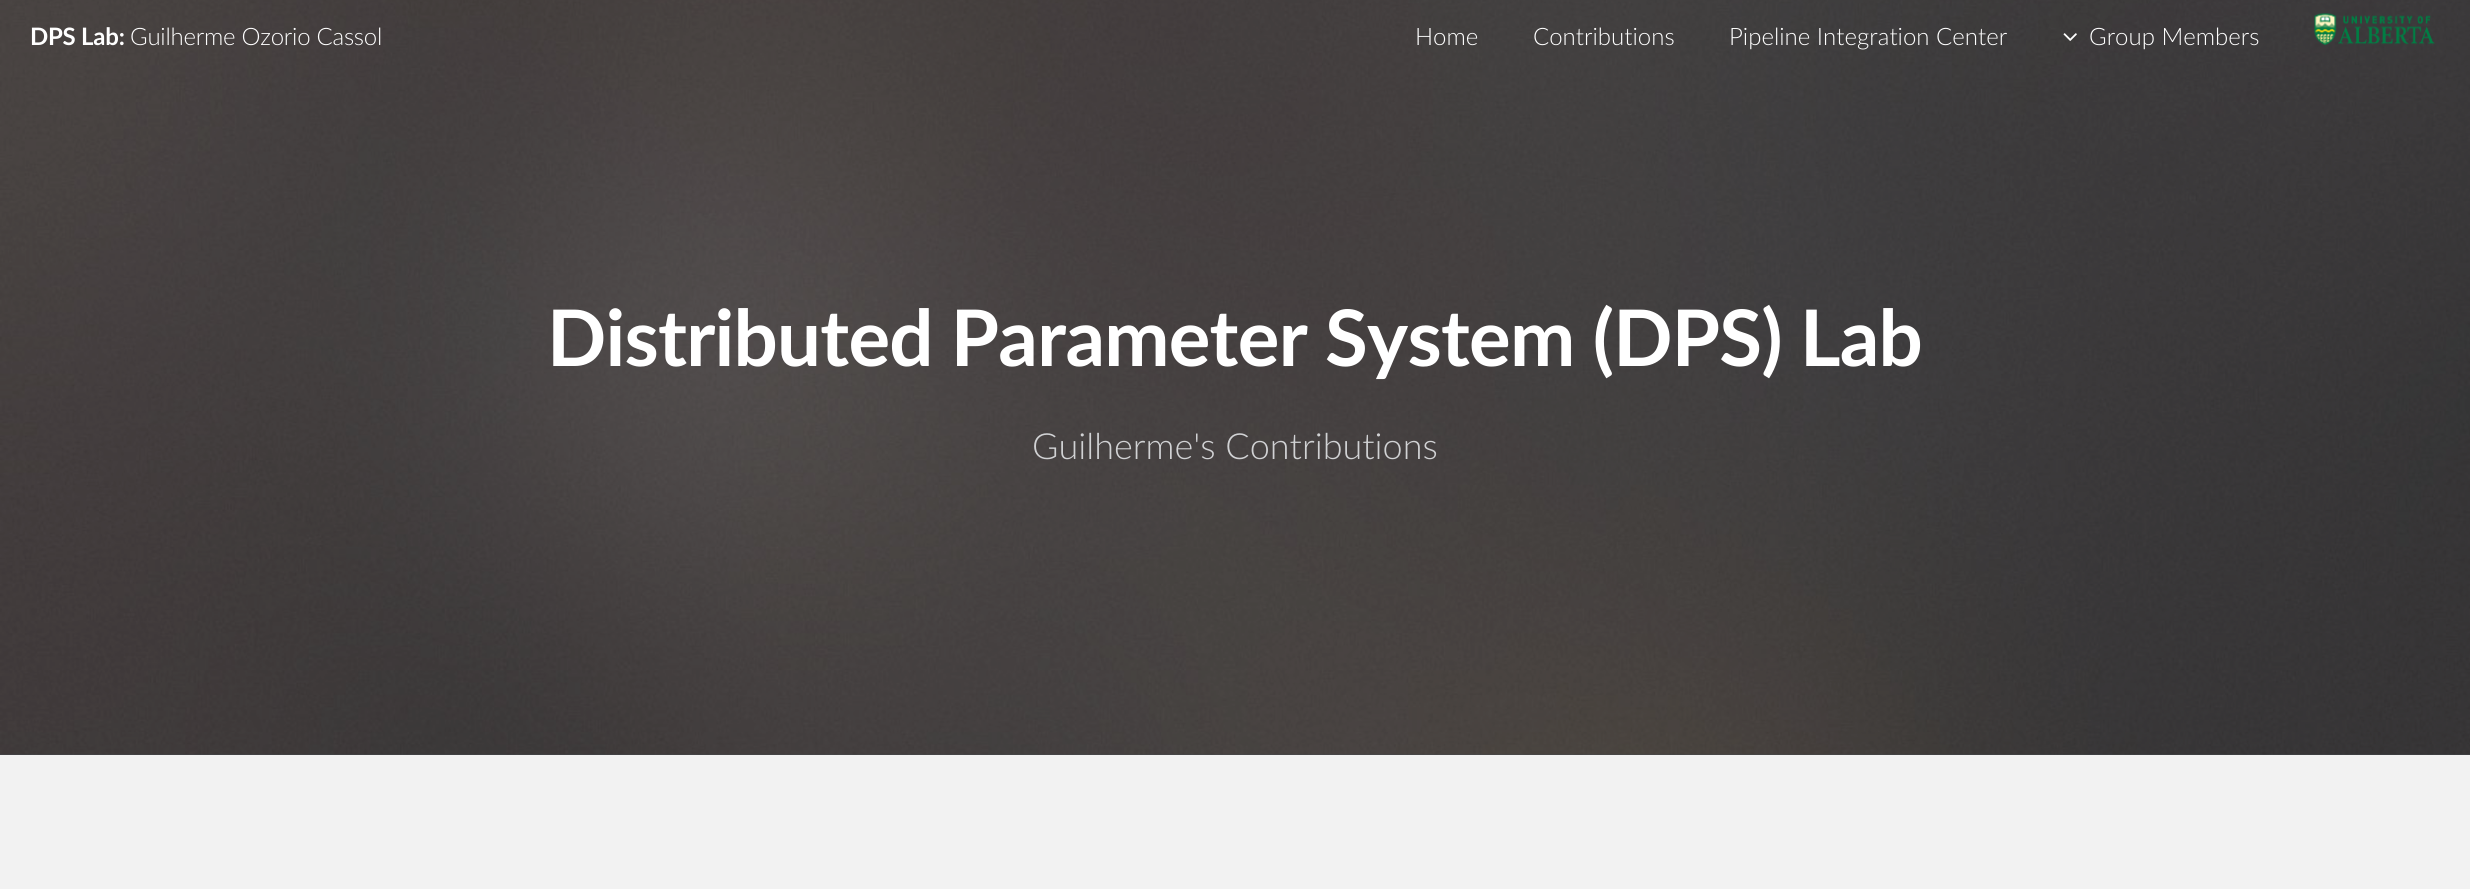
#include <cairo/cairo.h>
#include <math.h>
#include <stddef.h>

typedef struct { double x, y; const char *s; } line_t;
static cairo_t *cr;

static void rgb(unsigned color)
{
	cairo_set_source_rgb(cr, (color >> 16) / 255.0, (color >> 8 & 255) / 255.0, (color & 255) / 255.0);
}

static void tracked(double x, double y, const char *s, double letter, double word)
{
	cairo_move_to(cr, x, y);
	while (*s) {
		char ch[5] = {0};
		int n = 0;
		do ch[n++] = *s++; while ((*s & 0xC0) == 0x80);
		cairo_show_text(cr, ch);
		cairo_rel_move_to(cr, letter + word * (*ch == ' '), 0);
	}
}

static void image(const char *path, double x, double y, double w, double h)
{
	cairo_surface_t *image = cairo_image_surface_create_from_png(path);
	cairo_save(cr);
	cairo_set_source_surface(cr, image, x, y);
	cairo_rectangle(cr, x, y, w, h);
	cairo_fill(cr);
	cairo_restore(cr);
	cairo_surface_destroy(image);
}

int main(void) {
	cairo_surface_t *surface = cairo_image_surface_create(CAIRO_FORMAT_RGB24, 2470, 889);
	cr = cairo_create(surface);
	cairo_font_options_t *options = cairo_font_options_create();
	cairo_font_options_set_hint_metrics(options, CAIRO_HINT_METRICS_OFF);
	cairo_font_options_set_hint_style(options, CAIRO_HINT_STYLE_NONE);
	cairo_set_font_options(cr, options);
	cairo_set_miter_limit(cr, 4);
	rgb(0xf2f2f2);
	cairo_paint(cr);
	rgb(0x494d53);
	cairo_rectangle(cr, 0, 754, 2470, 1);
	cairo_fill(cr);
	image("img/3.png", 0, 0, 2470, 755);
	image("img/1.png", 2063, 33, 14, 8);
	image("img/2.png", 2314, 13, 121, 32);
	cairo_select_font_face(cr, "Lato", CAIRO_FONT_SLANT_NORMAL, CAIRO_FONT_WEIGHT_BOLD);
	cairo_set_font_size(cr, 24);
	rgb(0xffffff);
	tracked(30, 45, "DPS Lab:", -0.25, 0);
	cairo_select_font_face(cr, "Lato Light", CAIRO_FONT_SLANT_NORMAL, CAIRO_FONT_WEIGHT_NORMAL);
	tracked(130, 45, "Guilherme Ozorio Cassol", -0.25, 0);
	{
		static const line_t items[] = {
			{1415, 45, "Home"},
			{1533, 45, "Contributions"},
			{1729, 45, "Pipeline Integration Center"},
			{2089, 45, "Group Members"},
		};
		for (size_t i = 0; i < sizeof items / sizeof *items; i++) {
			cairo_move_to(cr, items[i].x, items[i].y);
			cairo_show_text(cr, items[i].s);
		}
	}
	cairo_select_font_face(cr, "Lato", CAIRO_FONT_SLANT_NORMAL, CAIRO_FONT_WEIGHT_BOLD);
	cairo_set_font_size(cr, 78);
	tracked(547, 366, "Distributed Parameter System (DPS) Lab", -0.8, 0);
	cairo_select_font_face(cr, "Lato Light", CAIRO_FONT_SLANT_NORMAL, CAIRO_FONT_WEIGHT_NORMAL);
	cairo_set_font_size(cr, 36);
	rgb(0xd1d2d4);
	cairo_move_to(cr, 1032, 459);
	cairo_show_text(cr, "Guilherme's Contributions");
	cairo_surface_write_to_png(surface, "page.png");
	cairo_font_options_destroy(options);
	cairo_destroy(cr);
	cairo_surface_destroy(surface);
	return 0;
}
